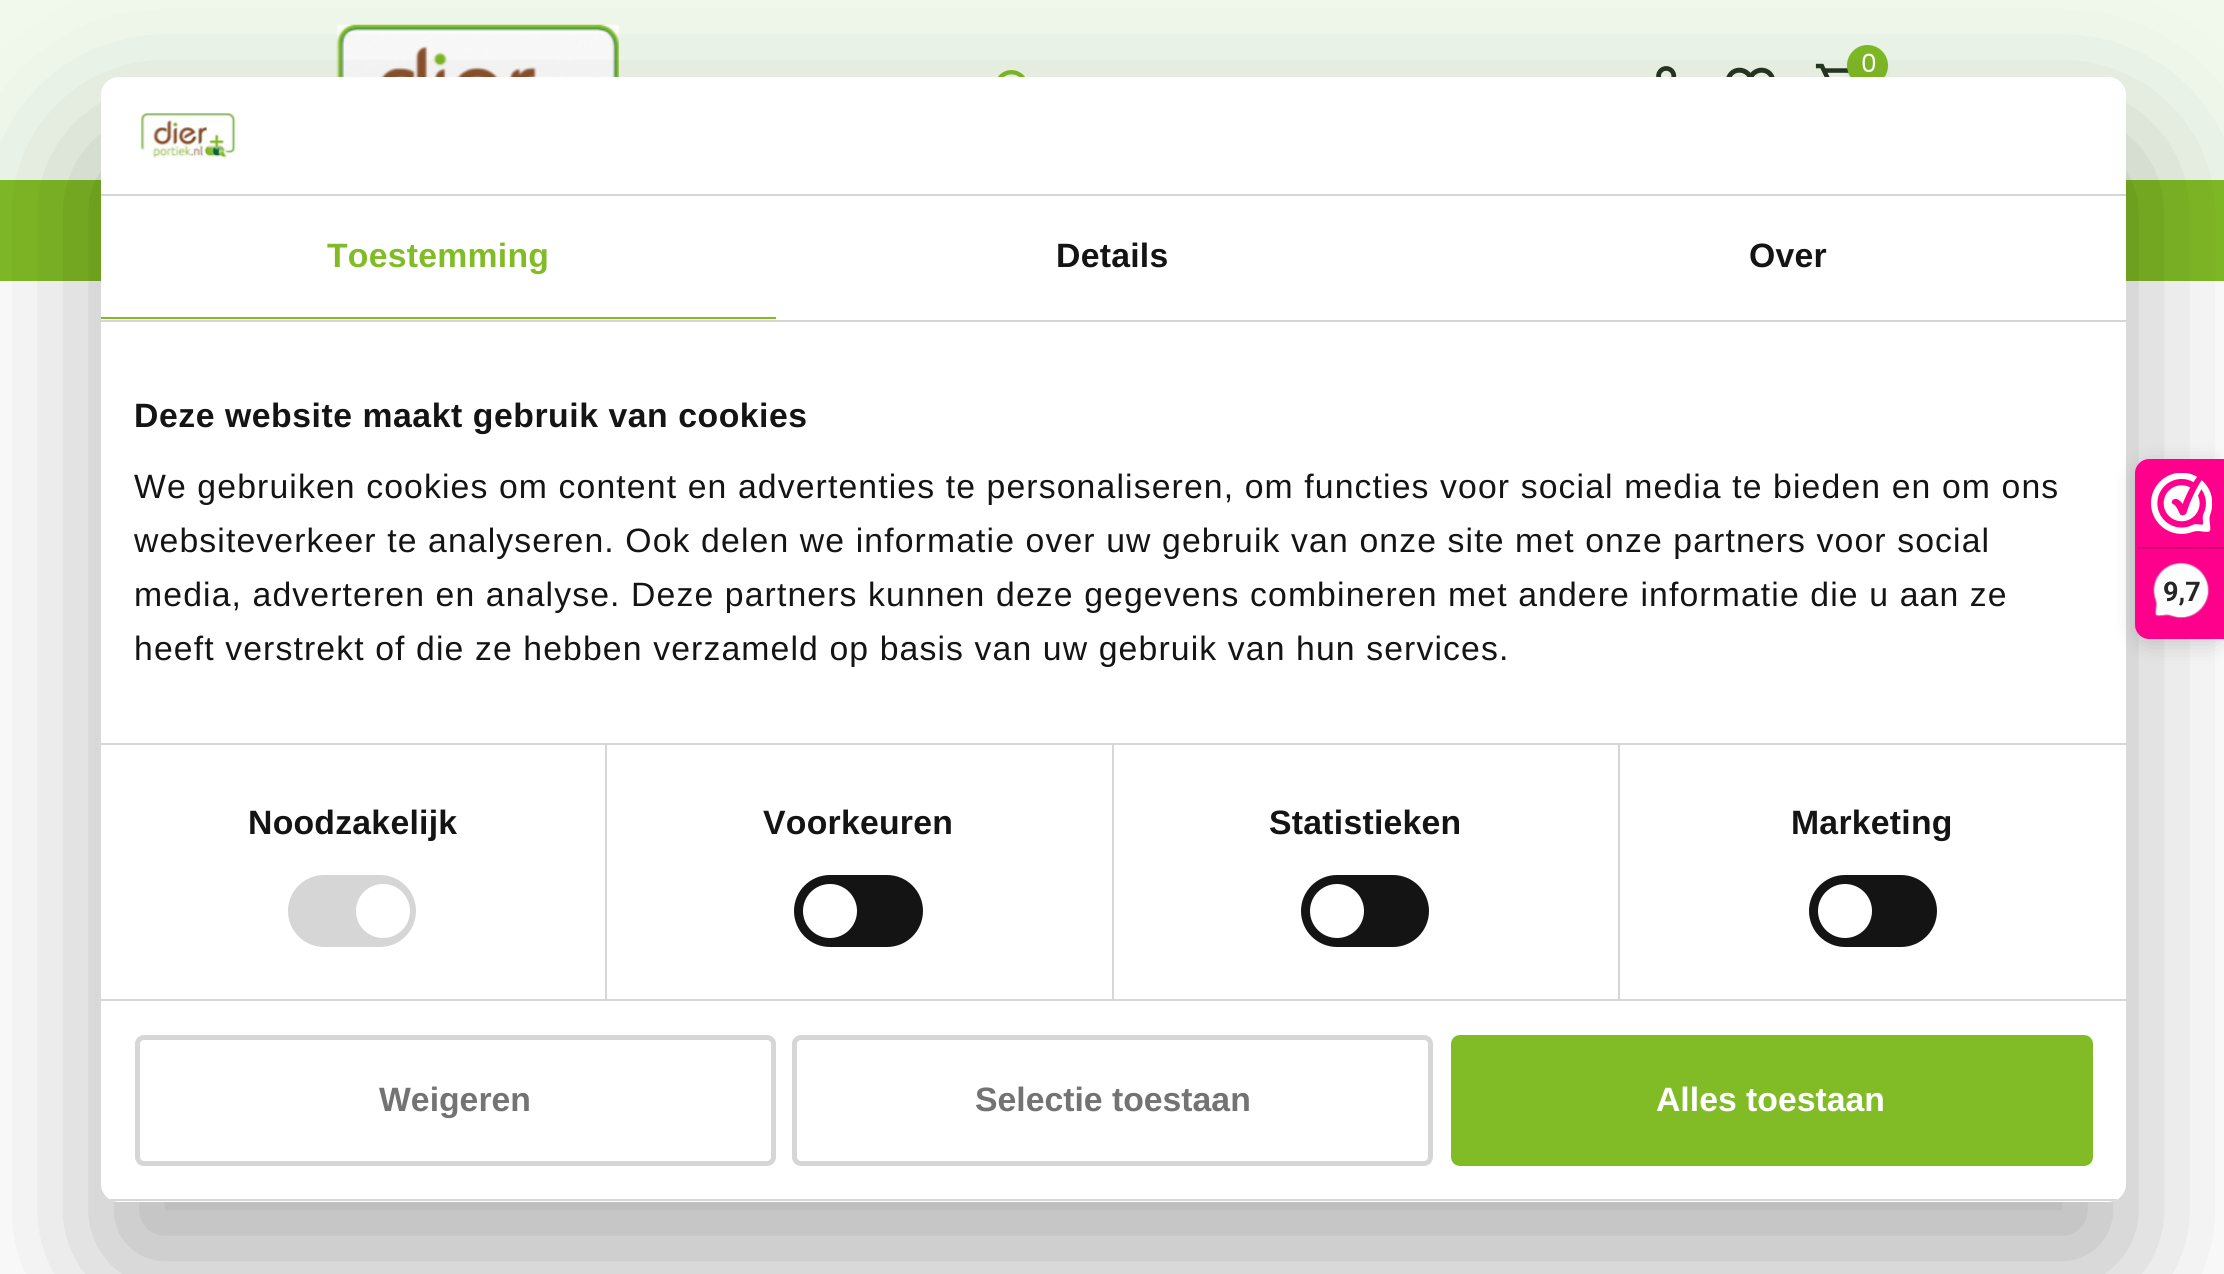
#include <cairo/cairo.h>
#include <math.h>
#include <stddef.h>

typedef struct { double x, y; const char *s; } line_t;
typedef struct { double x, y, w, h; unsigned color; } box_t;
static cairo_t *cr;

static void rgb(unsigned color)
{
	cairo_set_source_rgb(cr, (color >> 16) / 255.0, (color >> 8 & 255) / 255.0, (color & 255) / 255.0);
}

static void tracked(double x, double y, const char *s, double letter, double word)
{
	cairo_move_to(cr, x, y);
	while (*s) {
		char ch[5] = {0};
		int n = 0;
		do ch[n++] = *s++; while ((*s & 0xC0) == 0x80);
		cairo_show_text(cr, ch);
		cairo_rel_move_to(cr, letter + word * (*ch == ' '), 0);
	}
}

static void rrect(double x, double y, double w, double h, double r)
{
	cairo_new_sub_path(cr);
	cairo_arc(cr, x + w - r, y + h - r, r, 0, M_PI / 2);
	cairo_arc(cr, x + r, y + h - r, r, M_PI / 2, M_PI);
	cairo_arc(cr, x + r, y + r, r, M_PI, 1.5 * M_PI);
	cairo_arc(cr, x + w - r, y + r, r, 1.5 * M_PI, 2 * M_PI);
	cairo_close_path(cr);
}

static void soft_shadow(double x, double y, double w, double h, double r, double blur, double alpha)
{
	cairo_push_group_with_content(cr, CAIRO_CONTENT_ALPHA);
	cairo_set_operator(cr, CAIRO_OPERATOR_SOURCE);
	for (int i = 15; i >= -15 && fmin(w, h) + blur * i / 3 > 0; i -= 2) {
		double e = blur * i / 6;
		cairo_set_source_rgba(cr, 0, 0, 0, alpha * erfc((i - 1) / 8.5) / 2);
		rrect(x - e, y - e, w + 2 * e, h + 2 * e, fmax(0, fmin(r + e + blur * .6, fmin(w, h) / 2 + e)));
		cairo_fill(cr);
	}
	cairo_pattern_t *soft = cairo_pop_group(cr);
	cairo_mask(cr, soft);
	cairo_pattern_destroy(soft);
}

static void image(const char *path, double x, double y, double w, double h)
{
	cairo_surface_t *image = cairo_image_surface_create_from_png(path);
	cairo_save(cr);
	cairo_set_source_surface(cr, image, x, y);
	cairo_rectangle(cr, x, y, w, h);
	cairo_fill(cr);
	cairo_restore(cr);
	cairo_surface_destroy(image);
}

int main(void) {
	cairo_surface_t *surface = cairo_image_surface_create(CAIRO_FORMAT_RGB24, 2224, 1274);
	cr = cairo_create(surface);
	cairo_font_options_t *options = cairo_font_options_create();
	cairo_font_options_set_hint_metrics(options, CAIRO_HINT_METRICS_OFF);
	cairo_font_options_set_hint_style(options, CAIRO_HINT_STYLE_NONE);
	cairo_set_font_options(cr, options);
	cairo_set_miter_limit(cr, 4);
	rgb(0xffffff);
	cairo_paint(cr);
	rgb(0xf0f9ec);
	cairo_rectangle(cr, 0, 0, 2224, 180);
	cairo_fill(cr);
	image("img/1.png", 336, 24, 283, 53);
	image("img/2.png", 1656, 66, 21, 11);
	image("img/3.png", 1726, 67, 49, 10);
	image("img/4.png", 1815, 63, 34, 14);
	rgb(0x000000);
	soft_shadow(1847, 50, 41, 40, 20, 2, 0.06);
	rgb(0x81bc26);
	cairo_arc(cr, 1867.5, 65.5, 20.5, 0, 2 * M_PI);
	cairo_fill(cr);
	image("img/5.png", 997, 70, 28, 7);
	cairo_rectangle(cr, 0, 180, 2224, 101);
	cairo_fill(cr);
	rgb(0x000000);
	soft_shadow(101, 149, 2025, 1125, 18, 76.5, 0.3);
	rgb(0xffffff);
	rrect(101, 77, 2025, 1125, 18);
	cairo_fill(cr);
	rgb(0xd6d6d6);
	cairo_rectangle(cr, 101, 194, 2025, 2);
	cairo_fill(cr);
	image("img/6.png", 140, 113, 96, 46);
	{
		static const box_t items[] = {
			{101, 320, 2025, 2, 0xd6d6d6},
			{101, 317, 675, 2, 0x81bc27},
			{101, 743, 2025, 2, 0xd6d6d6},
			{101, 999, 2025, 2, 0xd6d6d6},
			{605, 745, 2, 254, 0xd6d6d6},
		};
		for (size_t i = 0; i < sizeof items / sizeof *items; i++) {
			rgb(items[i].color);
			cairo_rectangle(cr, items[i].x, items[i].y, items[i].w, items[i].h);
			cairo_fill(cr);
		}
	}
	rrect(288, 875, 128, 72, 36);
	cairo_fill(cr);
	rgb(0xffffff);
	cairo_arc(cr, 383, 911, 27, 0, 2 * M_PI);
	cairo_fill(cr);
	rgb(0xd6d6d6);
	cairo_rectangle(cr, 1112, 745, 2, 254);
	cairo_fill(cr);
	rgb(0x141414);
	rrect(794, 875, 129, 72, 36);
	cairo_fill(cr);
	rgb(0xffffff);
	cairo_arc(cr, 830, 911, 27, 0, 2 * M_PI);
	cairo_fill(cr);
	rgb(0xd6d6d6);
	cairo_rectangle(cr, 1618, 745, 2, 254);
	cairo_fill(cr);
	rgb(0x141414);
	rrect(1301, 875, 128, 72, 36);
	cairo_fill(cr);
	rgb(0xffffff);
	cairo_arc(cr, 1337, 911, 27, 0, 2 * M_PI);
	cairo_fill(cr);
	rgb(0x141414);
	rrect(1809, 875, 128, 72, 36);
	cairo_fill(cr);
	rgb(0xffffff);
	cairo_arc(cr, 1845, 911, 27, 0, 2 * M_PI);
	cairo_fill(cr);
	cairo_save(cr);
	rrect(101, 77, 2025, 1125, 18);
	cairo_clip(cr);
	rgb(0xd6d6d6);
	cairo_rectangle(cr, 101, 1199, 2025, 2);
	cairo_fill(cr);
	cairo_restore(cr);
	rrect(137.5, 1037.5, 636, 126, 6.5);
	rgb(0xd6d6d6);
	cairo_set_line_width(cr, 5);
	cairo_stroke(cr);
	rrect(794.5, 1037.5, 636, 126, 6.5);
	cairo_stroke(cr);
	rgb(0x81bc27);
	rrect(1453.5, 1037.5, 637, 126, 6.5);
	cairo_fill_preserve(cr);
	cairo_stroke(cr);
	rgb(0x000000);
	soft_shadow(2135, 464, 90, 180, 14, 11, 0.15);
	rgb(0xfe008c);
	cairo_new_path(cr);
	cairo_move_to(cr, 2149, 459);
	cairo_line_to(cr, 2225, 459);
	cairo_line_to(cr, 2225, 639);
	cairo_line_to(cr, 2149, 639);
	cairo_curve_to(cr, 2141.5, 639, 2135, 632.5, 2135, 625);
	cairo_line_to(cr, 2135, 473);
	cairo_curve_to(cr, 2135, 465.5, 2141.5, 459, 2149, 459);
	cairo_close_path(cr);
	cairo_fill(cr);
	image("img/7.png", 2151, 473, 61, 61);
	rgb(0xd80077);
	cairo_rectangle(cr, 2138, 547, 86, 2);
	cairo_fill(cr);
	image("img/8.png", 2153, 562, 57, 57);
	cairo_select_font_face(cr, "Poppins", CAIRO_FONT_SLANT_NORMAL, CAIRO_FONT_WEIGHT_NORMAL);
	cairo_set_font_size(cr, 25);
	rgb(0xffffff);
	cairo_move_to(cr, 1861, 72);
	cairo_show_text(cr, "0");
	cairo_select_font_face(cr, "Liberation Sans", CAIRO_FONT_SLANT_NORMAL, CAIRO_FONT_WEIGHT_BOLD);
	cairo_set_font_size(cr, 33.75);
	rgb(0x81bc27);
	tracked(327, 267, "Toestemming", 0.25, 0);
	rgb(0x141414);
	tracked(1056, 267, "Details", 0.25, 0);
	tracked(1749, 267, "Over", 0.25, 0);
	tracked(134, 427, "Deze website maakt gebruik van cookies", 0.55, 0);
	cairo_select_font_face(cr, "Liberation Sans", CAIRO_FONT_SLANT_NORMAL, CAIRO_FONT_WEIGHT_NORMAL);
	{
		static const line_t items[] = {
			{134, 498, "We gebruiken cookies om content en advertenties te personaliseren, om functies voor social media te bieden en om ons"},
			{134, 552, "websiteverkeer te analyseren. Ook delen we informatie over uw gebruik van onze site met onze partners voor social"},
			{134, 606, "media, adverteren en analyse. Deze partners kunnen deze gegevens combineren met andere informatie die u aan ze"},
			{134, 660, "heeft verstrekt of die ze hebben verzameld op basis van uw gebruik van hun services."},
		};
		for (size_t i = 0; i < sizeof items / sizeof *items; i++) {
			tracked(items[i].x, items[i].y, items[i].s, 1.12, 0);
		}
	}
	cairo_select_font_face(cr, "Liberation Sans", CAIRO_FONT_SLANT_NORMAL, CAIRO_FONT_WEIGHT_BOLD);
	{
		static const line_t items[] = {
			{248, 834, "Noodzakelijk"},
			{763, 834, "Voorkeuren"},
			{1269, 834, "Statistieken"},
			{1791, 834, "Marketing"},
		};
		for (size_t i = 0; i < sizeof items / sizeof *items; i++) {
			tracked(items[i].x, items[i].y, items[i].s, 0.25, 0);
		}
	}
	rgb(0x737373);
	cairo_move_to(cr, 379, 1111);
	cairo_show_text(cr, "Weigeren");
	cairo_move_to(cr, 975, 1111);
	cairo_show_text(cr, "Selectie toestaan");
	rgb(0xffffff);
	cairo_move_to(cr, 1656, 1111);
	cairo_show_text(cr, "Alles toestaan");
	cairo_select_font_face(cr, "Roboto", CAIRO_FONT_SLANT_NORMAL, CAIRO_FONT_WEIGHT_BOLD);
	cairo_set_font_size(cr, 27);
	rgb(0x272626);
	cairo_move_to(cr, 2163, 601);
	cairo_show_text(cr, "9,7");
	cairo_surface_write_to_png(surface, "page.png");
	cairo_font_options_destroy(options);
	cairo_destroy(cr);
	cairo_surface_destroy(surface);
	return 0;
}
